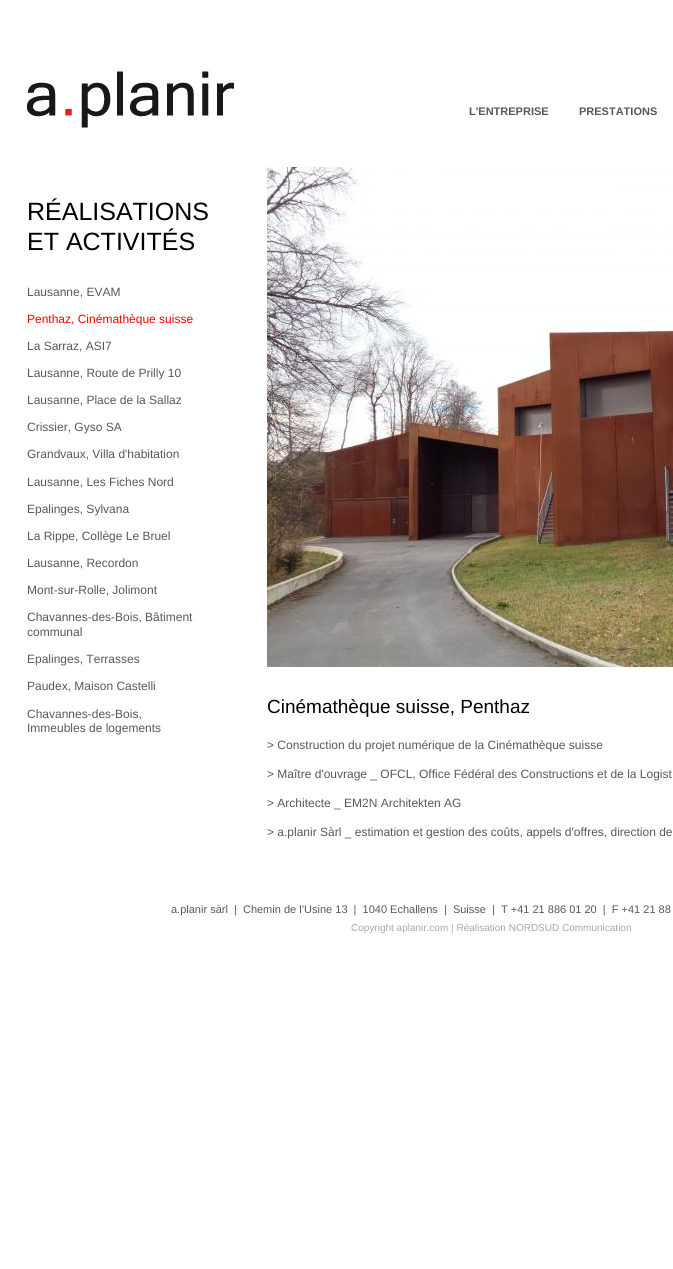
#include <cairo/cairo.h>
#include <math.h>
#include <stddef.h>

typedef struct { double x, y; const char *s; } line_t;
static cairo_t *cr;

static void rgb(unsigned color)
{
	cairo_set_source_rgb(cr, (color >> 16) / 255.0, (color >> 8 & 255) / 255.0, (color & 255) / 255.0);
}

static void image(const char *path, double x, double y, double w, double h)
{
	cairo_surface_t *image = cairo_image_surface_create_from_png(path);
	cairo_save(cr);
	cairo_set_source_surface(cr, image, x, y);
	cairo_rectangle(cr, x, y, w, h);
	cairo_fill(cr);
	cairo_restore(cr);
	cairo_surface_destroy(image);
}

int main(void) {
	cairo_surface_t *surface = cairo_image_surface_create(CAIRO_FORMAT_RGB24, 673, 1269);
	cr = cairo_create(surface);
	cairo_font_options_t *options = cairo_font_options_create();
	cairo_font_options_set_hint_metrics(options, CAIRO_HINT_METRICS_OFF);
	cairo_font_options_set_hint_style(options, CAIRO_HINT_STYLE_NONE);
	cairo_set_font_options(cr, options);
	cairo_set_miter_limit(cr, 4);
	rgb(0xffffff);
	cairo_paint(cr);
	image("img/1.png", 27, 71, 207, 57);
	image("img/2.png", 267, 167, 406, 500);
	cairo_select_font_face(cr, "Liberation Sans", CAIRO_FONT_SLANT_NORMAL, CAIRO_FONT_WEIGHT_BOLD);
	cairo_set_font_size(cr, 11);
	rgb(0x58585a);
	cairo_move_to(cr, 469, 115);
	cairo_show_text(cr, "L'ENTREPRISE");
	cairo_move_to(cr, 579, 115);
	cairo_show_text(cr, "PRESTATIONS");
	cairo_select_font_face(cr, "Liberation Sans", CAIRO_FONT_SLANT_NORMAL, CAIRO_FONT_WEIGHT_NORMAL);
	cairo_set_font_size(cr, 25);
	rgb(0x000000);
	cairo_move_to(cr, 27, 220);
	cairo_show_text(cr, "RÉALISATIONS");
	cairo_move_to(cr, 27, 250);
	cairo_show_text(cr, "ET ACTIVITÉS");
	cairo_set_font_size(cr, 12);
	rgb(0x58585a);
	cairo_move_to(cr, 27, 296);
	cairo_show_text(cr, "Lausanne, EVAM");
	rgb(0xff0000);
	cairo_move_to(cr, 27, 323);
	cairo_show_text(cr, "Penthaz, Cinémathèque suisse");
	rgb(0x58585a);
	{
		static const line_t items[] = {
			{27, 350, "La Sarraz, ASI7"},
			{27, 377, "Lausanne, Route de Prilly 10"},
			{27, 404, "Lausanne, Place de la Sallaz"},
			{27, 431, "Crissier, Gyso SA"},
			{27, 458, "Grandvaux, Villa d'habitation"},
			{27, 486, "Lausanne, Les Fiches Nord"},
			{27, 513, "Epalinges, Sylvana"},
			{27, 540, "La Rippe, Collège Le Bruel"},
			{27, 567, "Lausanne, Recordon"},
			{27, 594, "Mont-sur-Rolle, Jolimont"},
			{27, 621, "Chavannes-des-Bois, Bâtiment"},
			{27, 636, "communal"},
			{27, 663, "Epalinges, Terrasses"},
			{27, 690, "Paudex, Maison Castelli"},
			{27, 718, "Chavannes-des-Bois,"},
			{27, 732, "Immeubles de logements"},
		};
		for (size_t i = 0; i < sizeof items / sizeof *items; i++) {
			cairo_move_to(cr, items[i].x, items[i].y);
			cairo_show_text(cr, items[i].s);
		}
	}
	cairo_set_font_size(cr, 19);
	rgb(0x000000);
	cairo_move_to(cr, 267, 713);
	cairo_show_text(cr, "Cinémathèque suisse, Penthaz");
	cairo_set_font_size(cr, 12);
	rgb(0x58585a);
	{
		static const line_t items[] = {
			{267, 749, "> Construction du projet numérique de la Cinémathèque suisse"},
			{267, 778, "> Maître d'ouvrage _ OFCL, Office Fédéral des Constructions et de la Logist"},
			{267, 807, "> Architecte _ EM2N Architekten AG"},
			{267, 836, "> a.planir Sàrl _ estimation et gestion des coûts, appels d'offres, direction de"},
		};
		for (size_t i = 0; i < sizeof items / sizeof *items; i++) {
			cairo_move_to(cr, items[i].x, items[i].y);
			cairo_show_text(cr, items[i].s);
		}
	}
	cairo_set_font_size(cr, 11);
	cairo_move_to(cr, 171, 913);
	cairo_show_text(cr, "a.planir sàrl  |  Chemin de l’Usine 13  |  1040 Echallens  |  Suisse  |  T +41 21 886 01 20  |  F +41 21 88");
	cairo_set_font_size(cr, 10);
	rgb(0xa6a7a8);
	cairo_move_to(cr, 351, 931);
	cairo_show_text(cr, "Copyright aplanir.com | Réalisation NORDSUD Communication");
	cairo_surface_write_to_png(surface, "page.png");
	cairo_font_options_destroy(options);
	cairo_destroy(cr);
	cairo_surface_destroy(surface);
	return 0;
}
